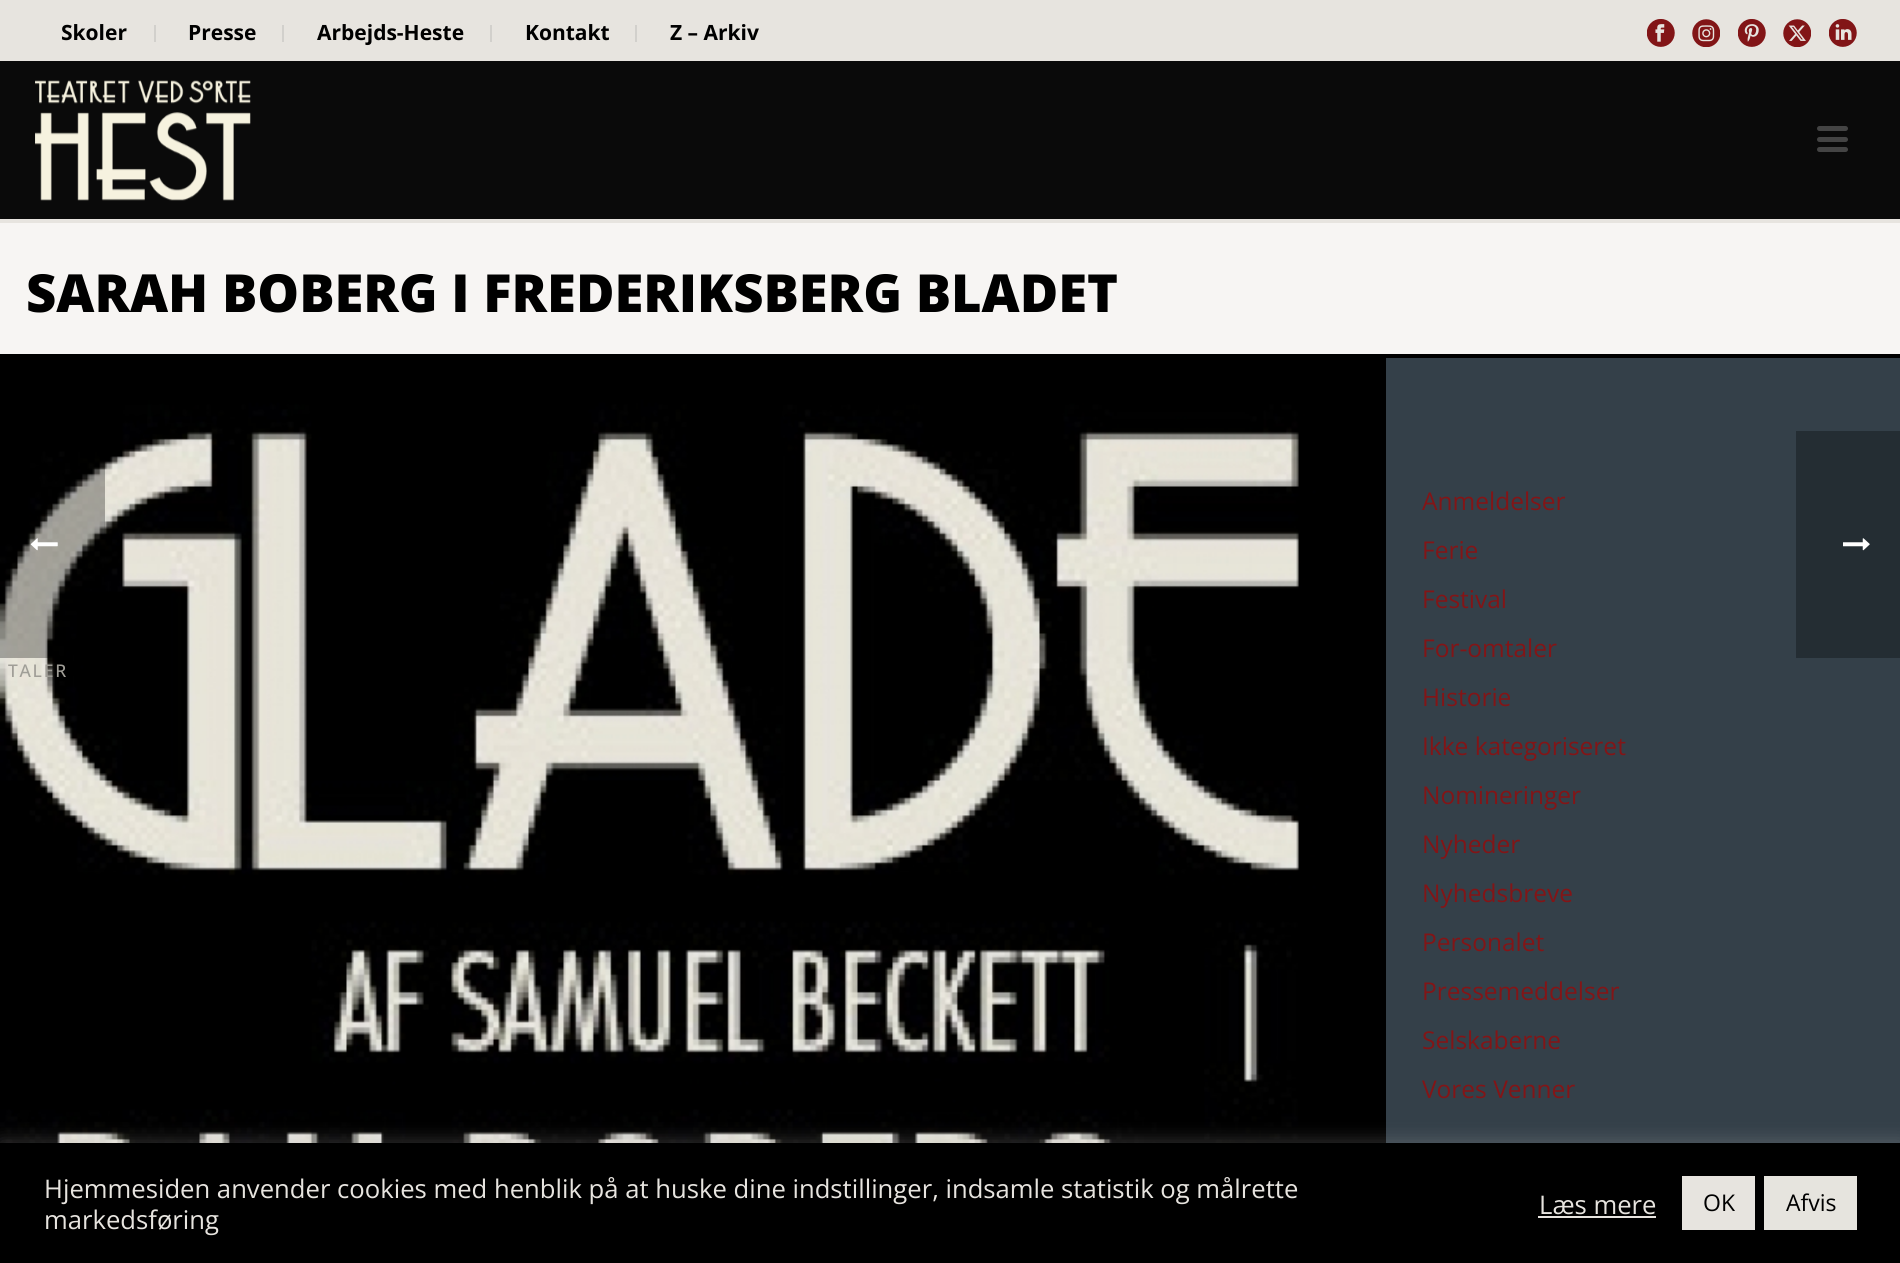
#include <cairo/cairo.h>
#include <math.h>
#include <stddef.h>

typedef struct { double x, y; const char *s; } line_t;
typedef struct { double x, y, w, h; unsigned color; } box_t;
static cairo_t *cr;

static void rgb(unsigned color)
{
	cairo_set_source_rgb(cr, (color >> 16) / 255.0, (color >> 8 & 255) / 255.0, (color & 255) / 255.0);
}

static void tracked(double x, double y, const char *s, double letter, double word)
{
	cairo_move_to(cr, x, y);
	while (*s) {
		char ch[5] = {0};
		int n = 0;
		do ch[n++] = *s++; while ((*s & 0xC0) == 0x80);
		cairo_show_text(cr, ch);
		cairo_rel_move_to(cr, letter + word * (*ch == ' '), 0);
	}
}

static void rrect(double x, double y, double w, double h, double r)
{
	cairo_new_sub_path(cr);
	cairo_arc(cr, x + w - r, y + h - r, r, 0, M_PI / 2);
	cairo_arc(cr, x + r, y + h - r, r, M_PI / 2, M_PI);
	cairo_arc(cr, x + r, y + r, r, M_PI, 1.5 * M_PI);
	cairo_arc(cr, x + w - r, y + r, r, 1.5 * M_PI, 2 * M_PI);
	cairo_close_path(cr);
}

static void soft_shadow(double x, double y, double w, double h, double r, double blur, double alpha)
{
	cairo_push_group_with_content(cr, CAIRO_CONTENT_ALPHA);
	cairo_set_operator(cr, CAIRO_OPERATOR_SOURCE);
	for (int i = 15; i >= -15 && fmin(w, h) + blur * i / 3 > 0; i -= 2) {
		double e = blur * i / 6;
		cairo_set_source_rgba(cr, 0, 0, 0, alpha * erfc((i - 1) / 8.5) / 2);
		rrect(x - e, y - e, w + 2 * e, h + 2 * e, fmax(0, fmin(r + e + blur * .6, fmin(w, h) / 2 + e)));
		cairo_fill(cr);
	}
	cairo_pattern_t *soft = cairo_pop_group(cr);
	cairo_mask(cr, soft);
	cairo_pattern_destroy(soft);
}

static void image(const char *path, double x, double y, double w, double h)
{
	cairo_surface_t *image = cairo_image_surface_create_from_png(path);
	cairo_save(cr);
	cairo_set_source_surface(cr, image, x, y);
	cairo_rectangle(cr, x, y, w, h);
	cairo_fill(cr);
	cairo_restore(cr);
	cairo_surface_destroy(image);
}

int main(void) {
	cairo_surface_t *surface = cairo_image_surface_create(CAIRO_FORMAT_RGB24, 1900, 1263);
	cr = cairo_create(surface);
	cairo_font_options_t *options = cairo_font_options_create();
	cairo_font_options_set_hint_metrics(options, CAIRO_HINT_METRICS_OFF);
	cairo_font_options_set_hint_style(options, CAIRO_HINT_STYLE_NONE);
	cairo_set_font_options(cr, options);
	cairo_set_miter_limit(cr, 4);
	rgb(0x344049);
	cairo_paint(cr);
	{
		static const box_t items[] = {
			{0, 223, 1900, 131, 0xf7f5f3},
			{0, 354, 1900, 4, 0x000000},
			{0, 0, 1900, 61, 0xe7e4df},
			{154, 25, 2, 17, 0xd2d0cc},
			{282, 25, 2, 17, 0xd2d0cc},
			{490, 25, 2, 17, 0xd2d0cc},
			{635, 25, 2, 17, 0xd2d0cc},
		};
		for (size_t i = 0; i < sizeof items / sizeof *items; i++) {
			rgb(items[i].color);
			cairo_rectangle(cr, items[i].x, items[i].y, items[i].w, items[i].h);
			cairo_fill(cr);
		}
	}
	image("img/1.png", 1647, 19, 28, 28);
	image("img/2.png", 1692, 19, 28, 28);
	image("img/3.png", 1738, 19, 28, 28);
	image("img/4.png", 1783, 19, 28, 28);
	image("img/5.png", 1829, 19, 28, 28);
	rgb(0xe7e4df);
	cairo_rectangle(cr, 0, 219, 1900, 4);
	cairo_fill(cr);
	rgb(0x0a0a0a);
	cairo_rectangle(cr, 0, 61, 1900, 158);
	cairo_fill(cr);
	image("img/6.png", 35, 80, 216, 121);
	rgb(0x444444);
	rrect(1817, 126, 31, 5, 2.5);
	cairo_fill(cr);
	rrect(1817, 137, 31, 5, 2.5);
	cairo_fill(cr);
	rrect(1817, 147, 31, 5, 2.5);
	cairo_fill(cr);
	image("img/7.png", 0, 358, 1386, 785);
	rgb(0x242d33);
	cairo_rectangle(cr, 1796, 431, 104, 227);
	cairo_fill(cr);
	image("img/8.png", 1843, 538, 27, 13);
	cairo_set_source_rgba(cr, 0, 0, 0, 0.3);
	cairo_rectangle(cr, 0, 462, 105, 196);
	cairo_fill(cr);
	image("img/9.png", 30, 538, 28, 13);
	rgb(0xacabab);
	soft_shadow(0, 1141, 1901, 121, 0, 9, 0.3);
	{
		static const box_t items[] = {
			{0, 1143, 1900, 120, 0x000000},
			{1538, 1216, 118, 2, 0xe7e4df},
			{1682, 1176, 73, 54, 0xe7e4df},
			{1764, 1176, 93, 54, 0xe6e4de},
		};
		for (size_t i = 0; i < sizeof items / sizeof *items; i++) {
			rgb(items[i].color);
			cairo_rectangle(cr, items[i].x, items[i].y, items[i].w, items[i].h);
			cairo_fill(cr);
		}
	}
	cairo_select_font_face(cr, "Open Sans", CAIRO_FONT_SLANT_NORMAL, CAIRO_FONT_WEIGHT_BOLD);
	cairo_set_font_size(cr, 21);
	rgb(0x000000);
	{
		static const line_t items[] = {
			{61, 40, "Skoler"},
			{188, 40, "Presse"},
			{317, 40, "Arbejds-Heste"},
			{525, 40, "Kontakt"},
			{670, 40, "Z – Arkiv"},
		};
		for (size_t i = 0; i < sizeof items / sizeof *items; i++) {
			cairo_move_to(cr, items[i].x, items[i].y);
			cairo_show_text(cr, items[i].s);
		}
	}
	cairo_select_font_face(cr, "Open Sans ExtraBold", CAIRO_FONT_SLANT_NORMAL, CAIRO_FONT_WEIGHT_NORMAL);
	cairo_set_font_size(cr, 52.5);
	cairo_move_to(cr, 26, 312);
	cairo_show_text(cr, "SARAH BOBERG I FREDERIKSBERG BLADET");
	cairo_select_font_face(cr, "Open Sans", CAIRO_FONT_SLANT_NORMAL, CAIRO_FONT_WEIGHT_NORMAL);
	cairo_set_font_size(cr, 24.5);
	rgb(0x821517);
	{
		static const line_t items[] = {
			{1422, 510, "Anmeldelser"},
			{1422, 559, "Ferie"},
			{1422, 608, "Festival"},
			{1422, 657, "For-omtaler"},
			{1422, 706, "Historie"},
			{1422, 755, "Ikke kategoriseret"},
			{1422, 804, "Nomineringer"},
			{1422, 853, "Nyheder"},
			{1422, 902, "Nyhedsbreve"},
			{1422, 951, "Personalet"},
			{1422, 1000, "Pressemeddelser"},
			{1422, 1049, "Selskaberne"},
			{1422, 1098, "Vores Venner"},
		};
		for (size_t i = 0; i < sizeof items / sizeof *items; i++) {
			cairo_move_to(cr, items[i].x, items[i].y);
			cairo_show_text(cr, items[i].s);
		}
	}
	cairo_select_font_face(cr, "Open Sans Medium", CAIRO_FONT_SLANT_NORMAL, CAIRO_FONT_WEIGHT_NORMAL);
	cairo_set_font_size(cr, 17.5);
	rgb(0xa09e97);
	tracked(8, 677, "TALER", 1.75, 0);
	cairo_select_font_face(cr, "Open Sans", CAIRO_FONT_SLANT_NORMAL, CAIRO_FONT_WEIGHT_NORMAL);
	cairo_set_font_size(cr, 25.65);
	rgb(0xe7e4df);
	{
		static const line_t items[] = {
			{44, 1198, "Hjemmesiden anvender cookies med henblik på at huske dine indstillinger, indsamle statistik og målrette"},
			{44, 1229, "markedsføring"},
			{1539, 1214, "Læs mere"},
		};
		for (size_t i = 0; i < sizeof items / sizeof *items; i++) {
			cairo_move_to(cr, items[i].x, items[i].y);
			cairo_show_text(cr, items[i].s);
		}
	}
	cairo_set_font_size(cr, 23);
	rgb(0x000000);
	cairo_move_to(cr, 1703, 1211);
	cairo_show_text(cr, "OK");
	cairo_move_to(cr, 1786, 1211);
	cairo_show_text(cr, "Afvis");
	cairo_surface_write_to_png(surface, "page.png");
	cairo_font_options_destroy(options);
	cairo_destroy(cr);
	cairo_surface_destroy(surface);
	return 0;
}
